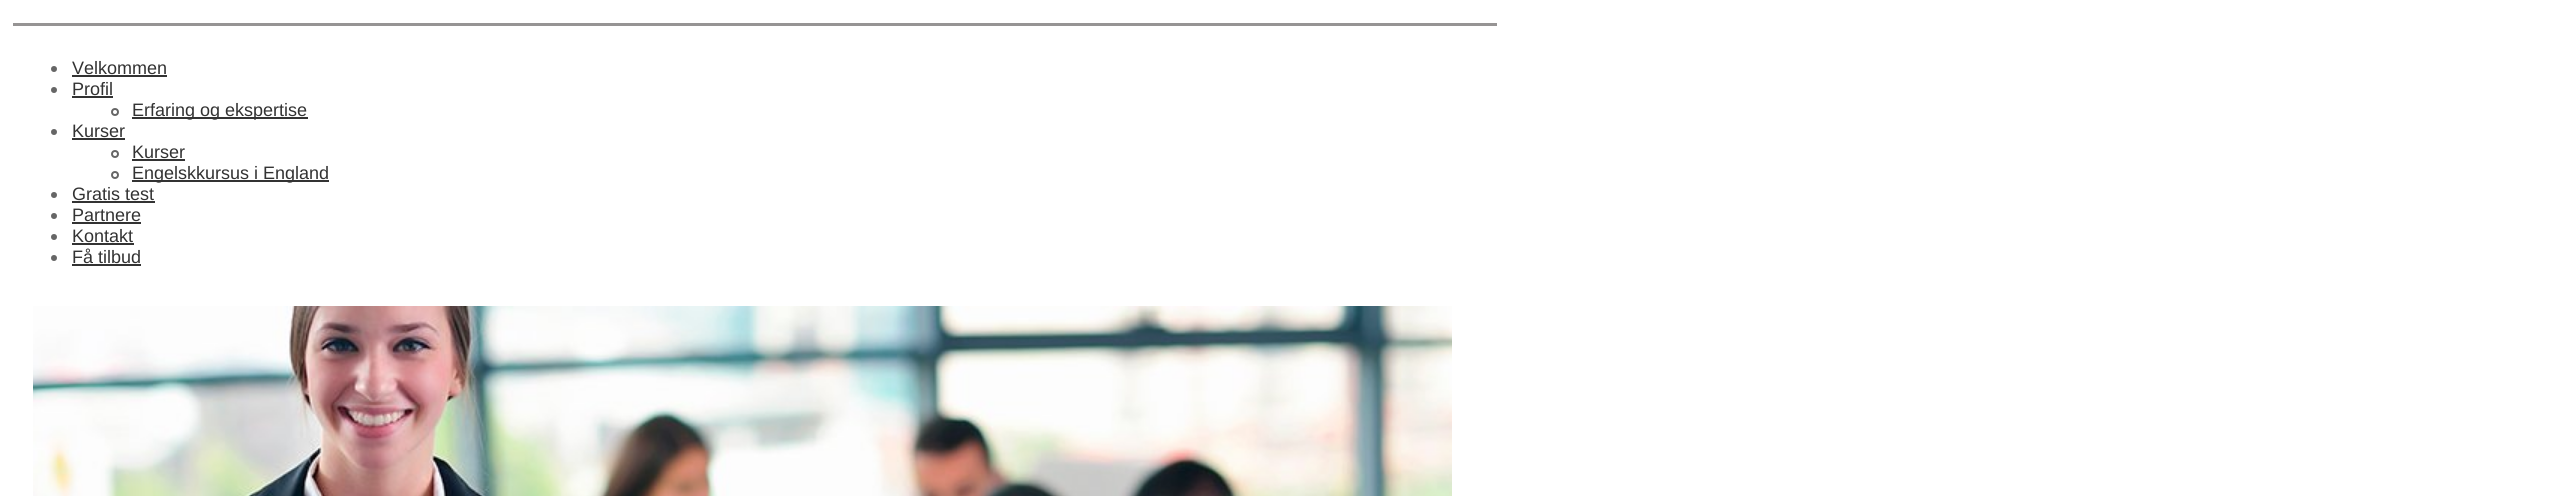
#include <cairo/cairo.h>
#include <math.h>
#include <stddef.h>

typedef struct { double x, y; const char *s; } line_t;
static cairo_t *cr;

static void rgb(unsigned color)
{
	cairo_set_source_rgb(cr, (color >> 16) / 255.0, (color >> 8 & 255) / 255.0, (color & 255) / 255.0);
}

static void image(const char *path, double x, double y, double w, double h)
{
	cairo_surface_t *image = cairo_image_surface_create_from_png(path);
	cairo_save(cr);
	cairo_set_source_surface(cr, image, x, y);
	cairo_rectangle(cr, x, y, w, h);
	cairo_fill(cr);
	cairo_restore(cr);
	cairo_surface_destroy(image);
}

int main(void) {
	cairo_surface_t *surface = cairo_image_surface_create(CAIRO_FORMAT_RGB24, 2560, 496);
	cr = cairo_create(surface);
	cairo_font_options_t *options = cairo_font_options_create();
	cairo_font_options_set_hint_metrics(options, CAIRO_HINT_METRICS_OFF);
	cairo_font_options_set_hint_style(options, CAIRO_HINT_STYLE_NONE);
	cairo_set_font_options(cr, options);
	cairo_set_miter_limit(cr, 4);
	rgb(0xffffff);
	cairo_paint(cr);
	rgb(0x969494);
	cairo_rectangle(cr, 13, 23, 1484, 3);
	cairo_fill(cr);
	rgb(0x666666);
	cairo_arc(cr, 54, 69, 3, 0, 2 * M_PI);
	cairo_fill(cr);
	rgb(0x333333);
	cairo_rectangle(cr, 72, 75, 95, 2);
	cairo_fill(cr);
	rgb(0x666666);
	cairo_arc(cr, 54, 90, 3, 0, 2 * M_PI);
	cairo_fill(cr);
	rgb(0x333333);
	cairo_rectangle(cr, 72, 96, 41, 2);
	cairo_fill(cr);
	cairo_arc(cr, 115, 112, 3, 0, 2 * M_PI);
	rgb(0x666666);
	cairo_stroke(cr);
	rgb(0x333333);
	cairo_rectangle(cr, 132, 117, 176, 2);
	cairo_fill(cr);
	rgb(0x666666);
	cairo_arc(cr, 54, 132, 3, 0, 2 * M_PI);
	cairo_fill(cr);
	rgb(0x333333);
	cairo_rectangle(cr, 72, 138, 53, 2);
	cairo_fill(cr);
	cairo_arc(cr, 115, 154, 3, 0, 2 * M_PI);
	rgb(0x666666);
	cairo_stroke(cr);
	rgb(0x333333);
	cairo_rectangle(cr, 132, 159, 53, 2);
	cairo_fill(cr);
	cairo_arc(cr, 115, 175, 3, 0, 2 * M_PI);
	rgb(0x666666);
	cairo_stroke(cr);
	rgb(0x333333);
	cairo_rectangle(cr, 132, 180, 197, 2);
	cairo_fill(cr);
	rgb(0x666666);
	cairo_arc(cr, 54, 195, 3, 0, 2 * M_PI);
	cairo_fill(cr);
	rgb(0x333333);
	cairo_rectangle(cr, 72, 201, 83, 2);
	cairo_fill(cr);
	rgb(0x666666);
	cairo_arc(cr, 54, 216, 3, 0, 2 * M_PI);
	cairo_fill(cr);
	rgb(0x333333);
	cairo_rectangle(cr, 72, 222, 69, 2);
	cairo_fill(cr);
	rgb(0x666666);
	cairo_arc(cr, 54, 237, 3, 0, 2 * M_PI);
	cairo_fill(cr);
	rgb(0x333333);
	cairo_rectangle(cr, 72, 243, 62, 2);
	cairo_fill(cr);
	rgb(0x666666);
	cairo_arc(cr, 54, 258, 3, 0, 2 * M_PI);
	cairo_fill(cr);
	rgb(0x333333);
	cairo_rectangle(cr, 72, 264, 69, 2);
	cairo_fill(cr);
	image("img/1.png", 33, 306, 1419, 190);
	cairo_select_font_face(cr, "Liberation Sans", CAIRO_FONT_SLANT_NORMAL, CAIRO_FONT_WEIGHT_NORMAL);
	cairo_set_font_size(cr, 18);
	{
		static const line_t items[] = {
			{72, 74, "Velkommen"},
			{72, 95, "Profil"},
			{132, 116, "Erfaring og ekspertise"},
			{72, 137, "Kurser"},
			{132, 158, "Kurser"},
			{132, 179, "Engelskkursus i England"},
			{72, 200, "Gratis test"},
			{72, 221, "Partnere"},
			{72, 242, "Kontakt"},
			{72, 263, "Få tilbud"},
		};
		for (size_t i = 0; i < sizeof items / sizeof *items; i++) {
			cairo_move_to(cr, items[i].x, items[i].y);
			cairo_show_text(cr, items[i].s);
		}
	}
	cairo_surface_write_to_png(surface, "page.png");
	cairo_font_options_destroy(options);
	cairo_destroy(cr);
	cairo_surface_destroy(surface);
	return 0;
}
